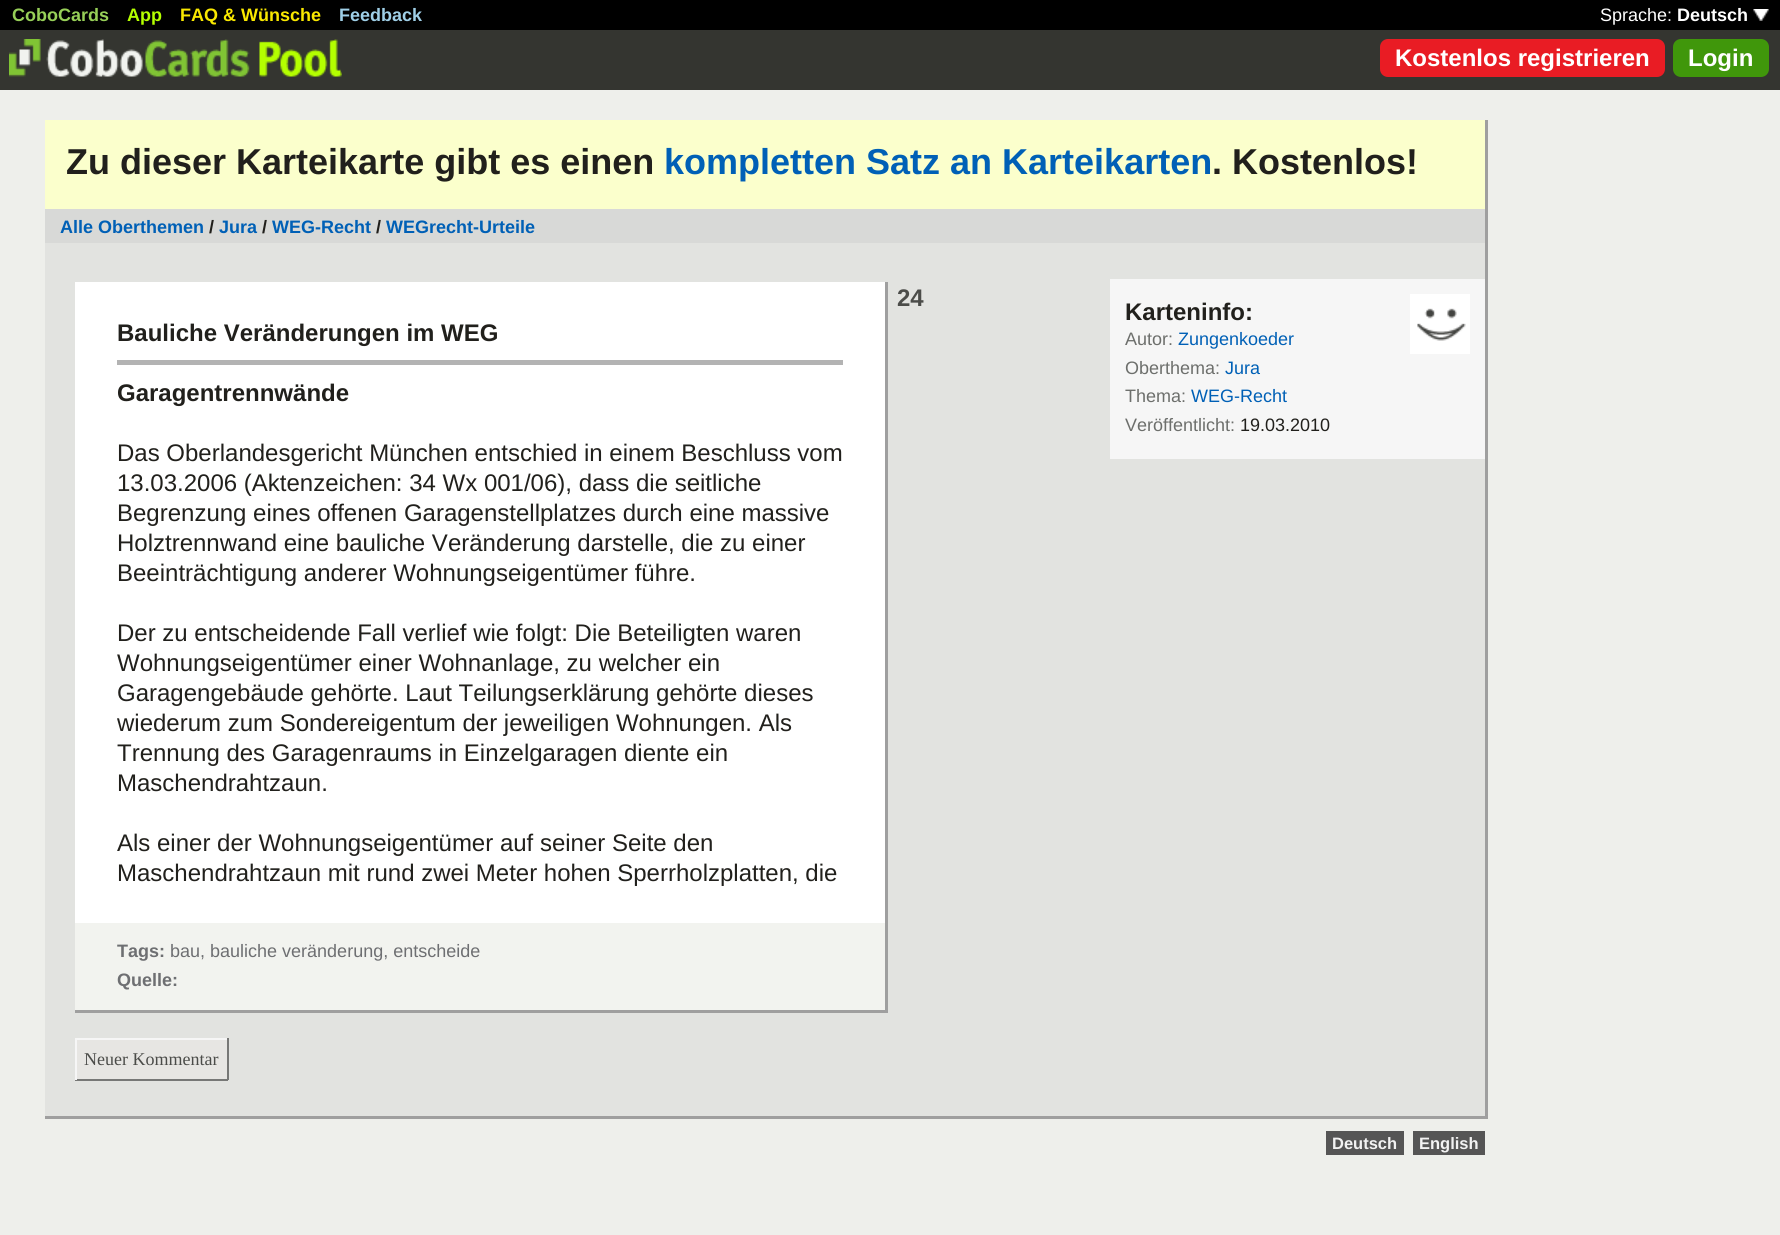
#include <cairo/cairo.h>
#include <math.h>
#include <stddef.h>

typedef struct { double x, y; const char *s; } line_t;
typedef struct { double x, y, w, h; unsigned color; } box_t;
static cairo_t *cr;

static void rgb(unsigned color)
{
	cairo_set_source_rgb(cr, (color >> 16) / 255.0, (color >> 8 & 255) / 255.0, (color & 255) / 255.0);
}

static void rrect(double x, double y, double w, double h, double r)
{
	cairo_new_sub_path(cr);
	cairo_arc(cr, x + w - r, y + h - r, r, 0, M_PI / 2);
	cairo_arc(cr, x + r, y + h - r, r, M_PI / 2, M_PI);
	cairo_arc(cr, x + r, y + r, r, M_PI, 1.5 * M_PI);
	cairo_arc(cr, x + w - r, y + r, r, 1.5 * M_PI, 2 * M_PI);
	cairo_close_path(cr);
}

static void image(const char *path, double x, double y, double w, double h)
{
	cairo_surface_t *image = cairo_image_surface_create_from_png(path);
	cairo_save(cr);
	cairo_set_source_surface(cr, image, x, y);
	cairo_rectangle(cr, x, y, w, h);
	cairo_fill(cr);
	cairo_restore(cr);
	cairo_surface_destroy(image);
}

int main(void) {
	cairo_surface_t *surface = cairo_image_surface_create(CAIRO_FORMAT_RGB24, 1780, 1235);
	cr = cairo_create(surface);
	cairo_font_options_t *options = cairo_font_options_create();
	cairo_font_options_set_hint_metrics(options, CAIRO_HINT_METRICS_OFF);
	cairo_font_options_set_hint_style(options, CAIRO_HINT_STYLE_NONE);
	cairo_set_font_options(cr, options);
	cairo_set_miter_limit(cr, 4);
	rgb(0xeeefeb);
	cairo_paint(cr);
	rgb(0x343530);
	cairo_rectangle(cr, 0, 30, 1780, 60);
	cairo_fill(cr);
	rgb(0x000000);
	cairo_rectangle(cr, 0, 0, 1780, 30);
	cairo_fill(cr);
	image("img/1.png", 1753, 9, 16, 12);
	image("img/2.png", 9, 39, 333, 38);
	rgb(0xe91c24);
	rrect(1380, 39, 285, 38, 8);
	cairo_fill(cr);
	rgb(0x40970b);
	rrect(1673, 39, 96, 38, 8);
	cairo_fill(cr);
	{
		static const box_t items[] = {
			{45, 243, 1440, 873, 0xe2e3e0},
			{1485, 120, 3, 999, 0x9f9f9f},
			{45, 1116, 1443, 3, 0x9f9f9f},
			{45, 120, 1440, 89, 0xfbffcc},
			{45, 209, 1440, 34, 0xd8d9d7},
			{75, 282, 810, 641, 0xffffff},
			{885, 282, 3, 731, 0x9f9f9f},
			{117, 360, 726, 5, 0xb3b3b3},
			{75, 923, 810, 87, 0xf2f3ef},
			{75, 1010, 813, 3, 0x9f9f9f},
			{77, 1040, 150, 39, 0xe7e6e3},
			{75, 1038, 153, 2, 0xf6f6f6},
			{227, 1038, 2, 42, 0x777876},
			{75, 1079, 153, 2, 0x777876},
			{75, 1038, 2, 42, 0xf6f6f6},
			{1110, 279, 375, 180, 0xf6f6f6},
		};
		for (size_t i = 0; i < sizeof items / sizeof *items; i++) {
			rgb(items[i].color);
			cairo_rectangle(cr, items[i].x, items[i].y, items[i].w, items[i].h);
			cairo_fill(cr);
		}
	}
	image("img/3.png", 1410, 294, 60, 60);
	rgb(0x555555);
	cairo_rectangle(cr, 1326, 1131, 78, 24);
	cairo_fill(cr);
	cairo_rectangle(cr, 1413, 1131, 72, 24);
	cairo_fill(cr);
	cairo_select_font_face(cr, "Liberation Sans", CAIRO_FONT_SLANT_NORMAL, CAIRO_FONT_WEIGHT_BOLD);
	cairo_set_font_size(cr, 18);
	rgb(0x97cf58);
	cairo_move_to(cr, 12, 21);
	cairo_show_text(cr, "CoboCards");
	rgb(0xb4ff00);
	cairo_move_to(cr, 127, 21);
	cairo_show_text(cr, "App");
	rgb(0xf9e800);
	cairo_move_to(cr, 180, 21);
	cairo_show_text(cr, "FAQ & Wünsche");
	rgb(0x9fcfe7);
	cairo_move_to(cr, 339, 21);
	cairo_show_text(cr, "Feedback");
	cairo_select_font_face(cr, "Liberation Sans", CAIRO_FONT_SLANT_NORMAL, CAIRO_FONT_WEIGHT_NORMAL);
	rgb(0xffffff);
	cairo_move_to(cr, 1600, 21);
	cairo_show_text(cr, "Sprache:");
	cairo_select_font_face(cr, "Liberation Sans", CAIRO_FONT_SLANT_NORMAL, CAIRO_FONT_WEIGHT_BOLD);
	cairo_move_to(cr, 1677, 21);
	cairo_show_text(cr, "Deutsch");
	cairo_set_font_size(cr, 24);
	cairo_move_to(cr, 1395, 66);
	cairo_show_text(cr, "Kostenlos registrieren");
	cairo_move_to(cr, 1688, 66);
	cairo_show_text(cr, "Login");
	cairo_set_font_size(cr, 36);
	rgb(0x21201c);
	cairo_move_to(cr, 66, 174);
	cairo_show_text(cr, "Zu dieser Karteikarte gibt es einen");
	rgb(0x0060b6);
	cairo_move_to(cr, 664, 174);
	cairo_show_text(cr, "kompletten Satz an Karteikarten");
	rgb(0x21201c);
	cairo_move_to(cr, 1212, 174);
	cairo_show_text(cr, ". Kostenlos!");
	cairo_set_font_size(cr, 18);
	rgb(0x0060b6);
	cairo_move_to(cr, 60, 233);
	cairo_show_text(cr, "Alle Oberthemen");
	rgb(0x21201c);
	cairo_move_to(cr, 209, 233);
	cairo_show_text(cr, "/");
	rgb(0x0060b6);
	cairo_move_to(cr, 219, 233);
	cairo_show_text(cr, "Jura");
	rgb(0x21201c);
	cairo_move_to(cr, 262, 233);
	cairo_show_text(cr, "/");
	rgb(0x0060b6);
	cairo_move_to(cr, 272, 233);
	cairo_show_text(cr, "WEG-Recht");
	rgb(0x21201c);
	cairo_move_to(cr, 376, 233);
	cairo_show_text(cr, "/");
	rgb(0x0060b6);
	cairo_move_to(cr, 386, 233);
	cairo_show_text(cr, "WEGrecht-Urteile");
	cairo_set_font_size(cr, 24);
	rgb(0x4b4c49);
	cairo_move_to(cr, 897, 306);
	cairo_show_text(cr, "24");
	rgb(0x21201c);
	cairo_move_to(cr, 117, 341);
	cairo_show_text(cr, "Bauliche Veränderungen im WEG");
	cairo_move_to(cr, 117, 401);
	cairo_show_text(cr, "Garagentrennwände");
	cairo_select_font_face(cr, "Liberation Sans", CAIRO_FONT_SLANT_NORMAL, CAIRO_FONT_WEIGHT_NORMAL);
	{
		static const line_t items[] = {
			{117, 461, "Das Oberlandesgericht München entschied in einem Beschluss vom"},
			{117, 491, "13.03.2006 (Aktenzeichen: 34 Wx 001/06), dass die seitliche"},
			{117, 521, "Begrenzung eines offenen Garagenstellplatzes durch eine massive"},
			{117, 551, "Holztrennwand eine bauliche Veränderung darstelle, die zu einer"},
			{117, 581, "Beeinträchtigung anderer Wohnungseigentümer führe."},
			{117, 641, "Der zu entscheidende Fall verlief wie folgt: Die Beteiligten waren"},
			{117, 671, "Wohnungseigentümer einer Wohnanlage, zu welcher ein"},
			{117, 701, "Garagengebäude gehörte. Laut Teilungserklärung gehörte dieses"},
			{117, 731, "wiederum zum Sondereigentum der jeweiligen Wohnungen. Als"},
			{117, 761, "Trennung des Garagenraums in Einzelgaragen diente ein"},
			{117, 791, "Maschendrahtzaun."},
			{117, 851, "Als einer der Wohnungseigentümer auf seiner Seite den"},
			{117, 881, "Maschendrahtzaun mit rund zwei Meter hohen Sperrholzplatten, die"},
		};
		for (size_t i = 0; i < sizeof items / sizeof *items; i++) {
			cairo_move_to(cr, items[i].x, items[i].y);
			cairo_show_text(cr, items[i].s);
		}
	}
	cairo_select_font_face(cr, "Liberation Sans", CAIRO_FONT_SLANT_NORMAL, CAIRO_FONT_WEIGHT_BOLD);
	cairo_set_font_size(cr, 18);
	rgb(0x6e6f72);
	cairo_move_to(cr, 117, 957);
	cairo_show_text(cr, "Tags:");
	cairo_select_font_face(cr, "Liberation Sans", CAIRO_FONT_SLANT_NORMAL, CAIRO_FONT_WEIGHT_NORMAL);
	cairo_move_to(cr, 170, 957);
	cairo_show_text(cr, "bau, bauliche veränderung, entscheide");
	cairo_select_font_face(cr, "Liberation Sans", CAIRO_FONT_SLANT_NORMAL, CAIRO_FONT_WEIGHT_BOLD);
	cairo_move_to(cr, 117, 986);
	cairo_show_text(cr, "Quelle:");
	cairo_select_font_face(cr, "Liberation Serif", CAIRO_FONT_SLANT_NORMAL, CAIRO_FONT_WEIGHT_NORMAL);
	rgb(0x4b4c49);
	cairo_move_to(cr, 84, 1065);
	cairo_show_text(cr, "Neuer Kommentar");
	cairo_select_font_face(cr, "Liberation Sans", CAIRO_FONT_SLANT_NORMAL, CAIRO_FONT_WEIGHT_BOLD);
	cairo_set_font_size(cr, 24);
	rgb(0x21201c);
	cairo_move_to(cr, 1125, 320);
	cairo_show_text(cr, "Karteninfo:");
	cairo_select_font_face(cr, "Liberation Sans", CAIRO_FONT_SLANT_NORMAL, CAIRO_FONT_WEIGHT_NORMAL);
	cairo_set_font_size(cr, 18);
	rgb(0x6d6f6c);
	cairo_move_to(cr, 1125, 345);
	cairo_show_text(cr, "Autor:");
	rgb(0x0060b6);
	cairo_move_to(cr, 1178, 345);
	cairo_show_text(cr, "Zungenkoeder");
	rgb(0x6d6f6c);
	cairo_move_to(cr, 1125, 374);
	cairo_show_text(cr, "Oberthema:");
	rgb(0x0060b6);
	cairo_move_to(cr, 1225, 374);
	cairo_show_text(cr, "Jura");
	rgb(0x6d6f6c);
	cairo_move_to(cr, 1125, 402);
	cairo_show_text(cr, "Thema:");
	rgb(0x0060b6);
	cairo_move_to(cr, 1191, 402);
	cairo_show_text(cr, "WEG-Recht");
	rgb(0x6d6f6c);
	cairo_move_to(cr, 1125, 431);
	cairo_show_text(cr, "Veröffentlicht:");
	rgb(0x21201c);
	cairo_move_to(cr, 1240, 431);
	cairo_show_text(cr, "19.03.2010");
	cairo_select_font_face(cr, "Liberation Sans", CAIRO_FONT_SLANT_NORMAL, CAIRO_FONT_WEIGHT_BOLD);
	cairo_set_font_size(cr, 16.5);
	rgb(0xf2f2f2);
	cairo_move_to(cr, 1332, 1149);
	cairo_show_text(cr, "Deutsch");
	cairo_move_to(cr, 1419, 1149);
	cairo_show_text(cr, "English");
	cairo_surface_write_to_png(surface, "page.png");
	cairo_font_options_destroy(options);
	cairo_destroy(cr);
	cairo_surface_destroy(surface);
	return 0;
}
